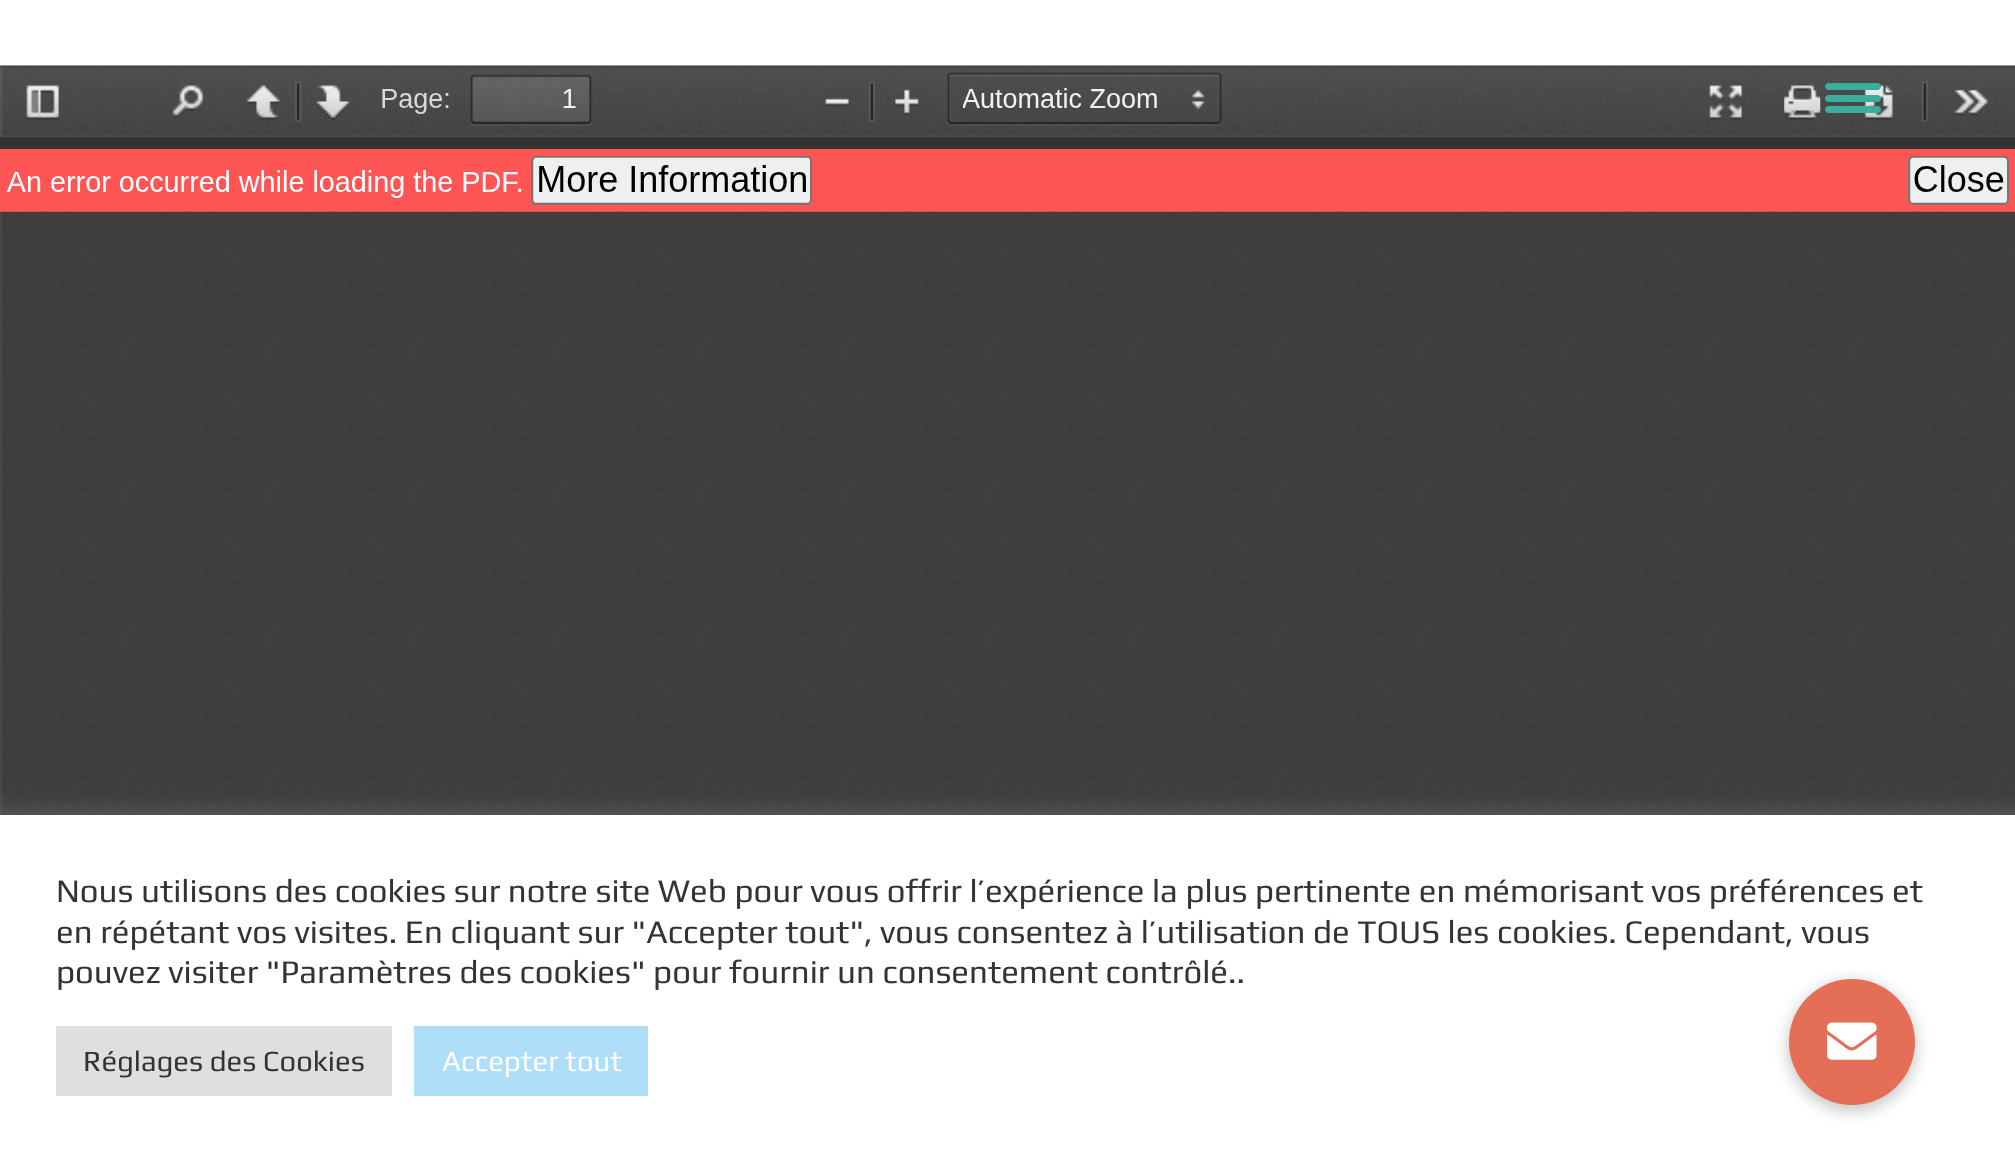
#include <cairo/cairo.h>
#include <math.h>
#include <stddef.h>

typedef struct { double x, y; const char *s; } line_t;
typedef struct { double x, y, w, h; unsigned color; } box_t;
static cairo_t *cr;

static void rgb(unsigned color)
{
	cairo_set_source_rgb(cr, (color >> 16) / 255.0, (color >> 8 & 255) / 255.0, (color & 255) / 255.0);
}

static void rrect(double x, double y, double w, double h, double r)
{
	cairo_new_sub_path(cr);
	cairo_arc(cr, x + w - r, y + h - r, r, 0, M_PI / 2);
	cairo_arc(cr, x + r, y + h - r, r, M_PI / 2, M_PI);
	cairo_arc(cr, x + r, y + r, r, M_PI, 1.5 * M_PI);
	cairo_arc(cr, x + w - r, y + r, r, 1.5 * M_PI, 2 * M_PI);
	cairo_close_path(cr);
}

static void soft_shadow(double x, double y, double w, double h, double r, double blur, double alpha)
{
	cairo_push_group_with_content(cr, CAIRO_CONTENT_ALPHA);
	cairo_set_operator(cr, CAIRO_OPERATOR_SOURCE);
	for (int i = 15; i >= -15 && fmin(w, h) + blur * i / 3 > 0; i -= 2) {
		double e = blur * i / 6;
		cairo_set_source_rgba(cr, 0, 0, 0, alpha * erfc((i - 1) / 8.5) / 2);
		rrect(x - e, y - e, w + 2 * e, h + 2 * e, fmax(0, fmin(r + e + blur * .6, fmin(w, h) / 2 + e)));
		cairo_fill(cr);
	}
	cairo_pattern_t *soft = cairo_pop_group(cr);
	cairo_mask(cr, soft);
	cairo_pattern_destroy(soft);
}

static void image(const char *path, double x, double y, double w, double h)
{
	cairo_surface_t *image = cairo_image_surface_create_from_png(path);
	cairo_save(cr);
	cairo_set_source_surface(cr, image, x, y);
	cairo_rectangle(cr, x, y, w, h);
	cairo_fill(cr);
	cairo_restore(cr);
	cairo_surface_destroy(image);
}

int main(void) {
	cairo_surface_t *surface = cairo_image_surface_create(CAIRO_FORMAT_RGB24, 2015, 1162);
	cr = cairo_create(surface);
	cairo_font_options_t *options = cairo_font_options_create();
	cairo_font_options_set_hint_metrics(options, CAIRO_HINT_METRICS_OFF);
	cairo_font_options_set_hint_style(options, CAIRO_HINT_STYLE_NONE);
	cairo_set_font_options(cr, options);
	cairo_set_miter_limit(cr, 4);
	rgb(0xffffff);
	cairo_paint(cr);
	image("img/1.png", 0, 65, 2015, 750);
	rgb(0x3bad9d);
	rrect(1825, 95, 56, 7, 3.5);
	cairo_fill(cr);
	rrect(1825, 83, 56, 7, 3.5);
	cairo_fill(cr);
	rrect(1825, 106, 56, 7, 3.5);
	cairo_fill(cr);
	rgb(0xacabab);
	soft_shadow(0, 812, 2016, 349, 0, 11, 0.3);
	{
		static const box_t items[] = {
			{0, 815, 2015, 347, 0xffffff},
			{56, 1026, 336, 70, 0xdedfe0},
			{414, 1026, 234, 70, 0xafdff8},
		};
		for (size_t i = 0; i < sizeof items / sizeof *items; i++) {
			rgb(items[i].color);
			cairo_rectangle(cr, items[i].x, items[i].y, items[i].w, items[i].h);
			cairo_fill(cr);
		}
	}
	rgb(0x000000);
	soft_shadow(1787, 981, 130, 131, 65, 7, 0.2);
	rgb(0xe56e57);
	cairo_arc(cr, 1852, 1042, 63, 0, 2 * M_PI);
	cairo_fill(cr);
	image("img/2.png", 1827, 1022, 50, 38);
	cairo_select_font_face(cr, "Play", CAIRO_FONT_SLANT_NORMAL, CAIRO_FONT_WEIGHT_NORMAL);
	cairo_set_font_size(cr, 33);
	rgb(0x333333);
	{
		static const line_t items[] = {
			{56, 902, "Nous utilisons des cookies sur notre site Web pour vous offrir l’expérience la plus pertinente en mémorisant vos préférences et"},
			{56, 943, "en répétant vos visites. En cliquant sur \"Accepter tout\", vous consentez à l’utilisation de TOUS les cookies. Cependant, vous"},
			{56, 983, "pouvez visiter \"Paramètres des cookies\" pour fournir un consentement contrôlé.."},
		};
		for (size_t i = 0; i < sizeof items / sizeof *items; i++) {
			cairo_move_to(cr, items[i].x, items[i].y);
			cairo_show_text(cr, items[i].s);
		}
	}
	cairo_set_font_size(cr, 29.25);
	cairo_move_to(cr, 83, 1071);
	cairo_show_text(cr, "Réglages des Cookies");
	rgb(0xffffff);
	cairo_move_to(cr, 442, 1071);
	cairo_show_text(cr, "Accepter tout");
	cairo_surface_write_to_png(surface, "page.png");
	cairo_font_options_destroy(options);
	cairo_destroy(cr);
	cairo_surface_destroy(surface);
	return 0;
}
